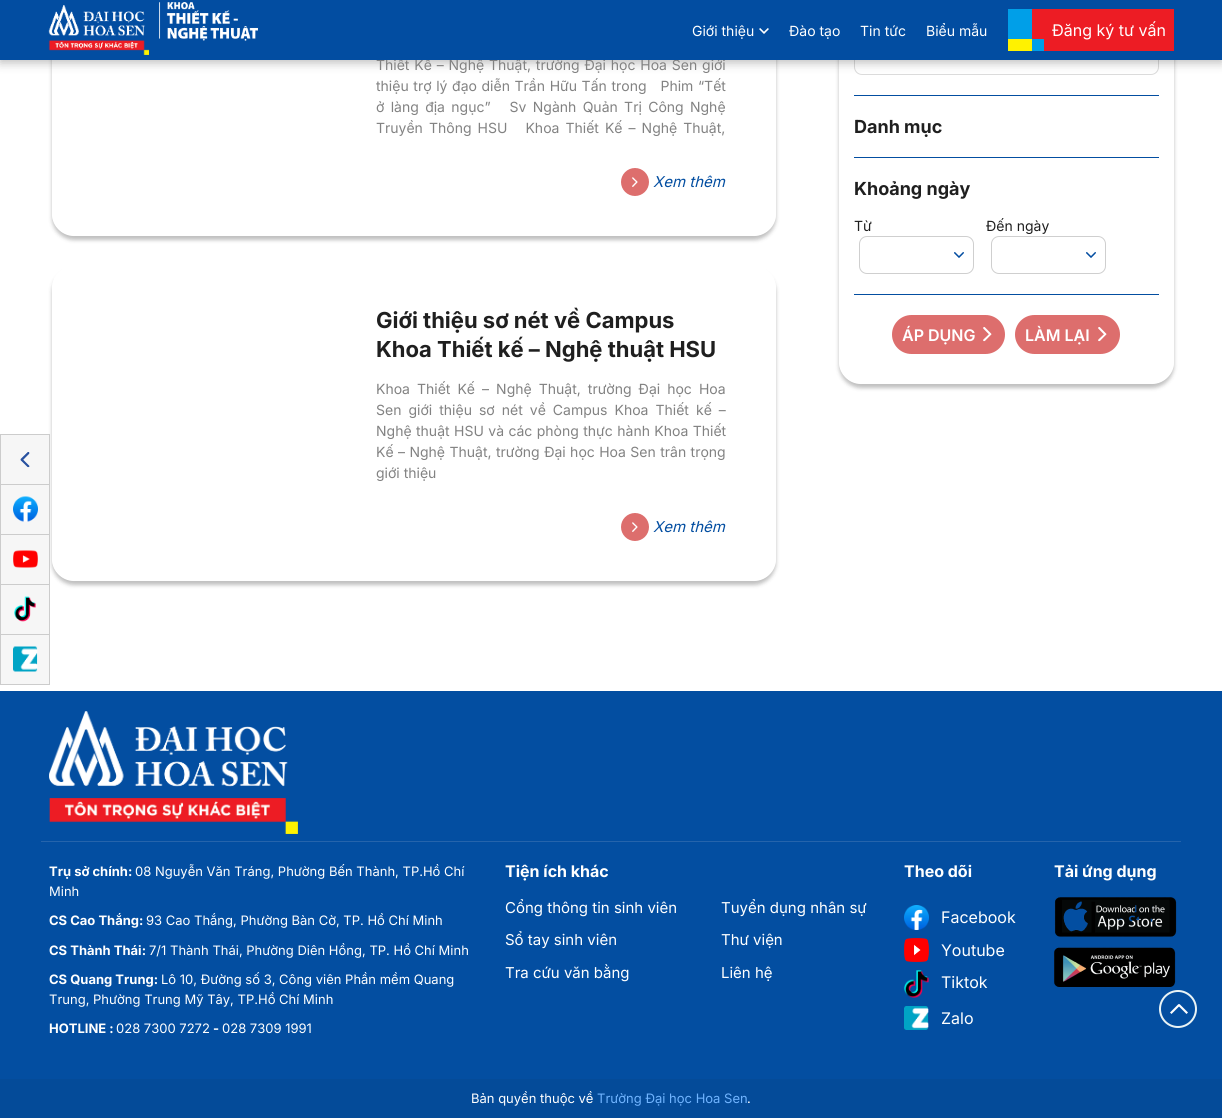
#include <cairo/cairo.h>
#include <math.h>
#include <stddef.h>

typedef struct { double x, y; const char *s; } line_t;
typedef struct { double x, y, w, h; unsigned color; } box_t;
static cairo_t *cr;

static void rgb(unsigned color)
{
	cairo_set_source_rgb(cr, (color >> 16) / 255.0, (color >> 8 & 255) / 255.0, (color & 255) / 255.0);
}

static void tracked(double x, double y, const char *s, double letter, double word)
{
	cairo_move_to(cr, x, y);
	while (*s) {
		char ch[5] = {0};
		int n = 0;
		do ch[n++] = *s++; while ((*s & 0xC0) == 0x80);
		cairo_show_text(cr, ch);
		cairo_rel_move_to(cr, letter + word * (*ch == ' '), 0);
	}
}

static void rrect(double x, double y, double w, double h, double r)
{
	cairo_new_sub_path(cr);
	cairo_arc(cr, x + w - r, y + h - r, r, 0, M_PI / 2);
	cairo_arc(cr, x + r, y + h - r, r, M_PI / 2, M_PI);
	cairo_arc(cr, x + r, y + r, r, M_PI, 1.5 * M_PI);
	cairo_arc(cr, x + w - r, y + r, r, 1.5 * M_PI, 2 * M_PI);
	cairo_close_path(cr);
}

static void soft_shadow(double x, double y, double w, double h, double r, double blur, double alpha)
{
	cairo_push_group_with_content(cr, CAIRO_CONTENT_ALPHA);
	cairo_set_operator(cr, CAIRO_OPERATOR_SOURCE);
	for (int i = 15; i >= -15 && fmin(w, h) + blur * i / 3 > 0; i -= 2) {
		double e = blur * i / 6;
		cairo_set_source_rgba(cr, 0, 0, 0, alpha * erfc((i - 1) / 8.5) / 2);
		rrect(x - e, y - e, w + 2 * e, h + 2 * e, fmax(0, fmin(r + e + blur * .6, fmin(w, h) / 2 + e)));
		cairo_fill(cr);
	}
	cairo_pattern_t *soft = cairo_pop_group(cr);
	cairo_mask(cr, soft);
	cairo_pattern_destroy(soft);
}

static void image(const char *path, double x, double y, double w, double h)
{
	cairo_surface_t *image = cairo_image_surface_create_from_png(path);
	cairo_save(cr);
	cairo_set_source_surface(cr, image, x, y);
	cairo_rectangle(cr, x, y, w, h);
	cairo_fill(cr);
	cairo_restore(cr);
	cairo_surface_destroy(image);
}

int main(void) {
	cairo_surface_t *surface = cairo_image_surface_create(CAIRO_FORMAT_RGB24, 1222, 1118);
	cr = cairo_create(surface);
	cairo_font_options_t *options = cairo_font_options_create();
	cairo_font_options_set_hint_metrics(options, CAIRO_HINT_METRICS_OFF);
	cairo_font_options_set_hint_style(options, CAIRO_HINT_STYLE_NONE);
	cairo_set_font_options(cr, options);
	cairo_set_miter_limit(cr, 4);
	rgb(0xffffff);
	cairo_paint(cr);
	cairo_save(cr);
	cairo_set_fill_rule(cr, CAIRO_FILL_RULE_EVEN_ODD);
	cairo_new_path(cr);
	cairo_move_to(cr, 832, 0);
	cairo_line_to(cr, 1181, 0);
	cairo_line_to(cr, 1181, 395);
	cairo_line_to(cr, 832, 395);
	cairo_close_path(cr);
	cairo_move_to(cr, 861, -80);
	cairo_line_to(cr, 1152, -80);
	cairo_curve_to(cr, 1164, -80, 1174, -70, 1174, -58);
	cairo_line_to(cr, 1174, 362);
	cairo_curve_to(cr, 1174, 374, 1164, 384, 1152, 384);
	cairo_line_to(cr, 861, 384);
	cairo_curve_to(cr, 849, 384, 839, 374, 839, 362);
	cairo_line_to(cr, 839, -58);
	cairo_curve_to(cr, 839, -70, 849, -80, 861, -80);
	cairo_close_path(cr);
	cairo_clip(cr);
	rgb(0x000000);
	soft_shadow(839, -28, 335, 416, 22, 2, 0.25);
	cairo_restore(cr);
	rrect(854.5, 37.5, 304, 37, 7.5);
	rgb(0xdbdbdb);
	cairo_set_line_width(cr, 1);
	cairo_stroke(cr);
	rgb(0x000000);
	soft_shadow(0, -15, 1222, 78, 0, 5, 0.25);
	cairo_save(cr);
	cairo_set_fill_rule(cr, CAIRO_FILL_RULE_EVEN_ODD);
	cairo_new_path(cr);
	cairo_move_to(cr, 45, 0);
	cairo_line_to(cr, 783, 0);
	cairo_line_to(cr, 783, 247);
	cairo_line_to(cr, 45, 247);
	cairo_close_path(cr);
	cairo_move_to(cr, 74, -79);
	cairo_line_to(cr, 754, -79);
	cairo_curve_to(cr, 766, -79, 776, -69, 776, -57);
	cairo_line_to(cr, 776, 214);
	cairo_curve_to(cr, 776, 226, 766, 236, 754, 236);
	cairo_line_to(cr, 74, 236);
	cairo_curve_to(cr, 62, 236, 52, 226, 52, 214);
	cairo_line_to(cr, 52, -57);
	cairo_curve_to(cr, 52, -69, 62, -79, 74, -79);
	cairo_close_path(cr);
	cairo_clip(cr);
	soft_shadow(52, -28, 724, 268, 22, 2, 0.25);
	cairo_restore(cr);
	rgb(0xdd6e6d);
	cairo_arc(cr, 635, 182, 14, 0, 2 * M_PI);
	cairo_fill(cr);
	image("img/4.png", 632, 177, 6, 10);
	cairo_save(cr);
	cairo_set_fill_rule(cr, CAIRO_FILL_RULE_EVEN_ODD);
	cairo_new_path(cr);
	cairo_move_to(cr, 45, 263);
	cairo_line_to(cr, 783, 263);
	cairo_line_to(cr, 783, 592);
	cairo_line_to(cr, 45, 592);
	cairo_close_path(cr);
	cairo_move_to(cr, 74, 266);
	cairo_line_to(cr, 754, 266);
	cairo_curve_to(cr, 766, 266, 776, 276, 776, 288);
	cairo_line_to(cr, 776, 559);
	cairo_curve_to(cr, 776, 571, 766, 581, 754, 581);
	cairo_line_to(cr, 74, 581);
	cairo_curve_to(cr, 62, 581, 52, 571, 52, 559);
	cairo_line_to(cr, 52, 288);
	cairo_curve_to(cr, 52, 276, 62, 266, 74, 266);
	cairo_close_path(cr);
	cairo_clip(cr);
	rgb(0x000000);
	soft_shadow(52, 270, 724, 315, 22, 2, 0.25);
	cairo_restore(cr);
	cairo_arc(cr, 635, 527, 14, 0, 2 * M_PI);
	cairo_fill(cr);
	image("img/5.png", 632, 522, 6, 10);
	rgb(0x034ea1);
	cairo_rectangle(cr, 854, 95, 305, 1);
	cairo_fill(cr);
	cairo_rectangle(cr, 854, 157, 305, 1);
	cairo_fill(cr);
	rrect(859.5, 236.5, 114, 37, 7.5);
	rgb(0xcfcfcf);
	cairo_stroke(cr);
	image("img/6.png", 954, 252, 10, 6);
	rrect(991.5, 236.5, 114, 37, 7.5);
	cairo_stroke(cr);
	image("img/6.png", 1086, 252, 10, 6);
	rgb(0x034ea1);
	cairo_rectangle(cr, 854, 294, 305, 1);
	cairo_fill(cr);
	rgb(0xdd6e6d);
	rrect(892, 315, 113, 39, 19.5);
	cairo_fill(cr);
	image("img/7.png", 983, 327, 9, 15);
	rrect(1015, 315, 105, 39, 19.5);
	cairo_fill(cr);
	image("img/7.png", 1098, 327, 9, 15);
	{
		static const box_t items[] = {
			{0, 434, 50, 1, 0xcccccc},
			{49, 434, 1, 251, 0xcccccc},
			{0, 434, 1, 251, 0xcccccc},
			{1, 435, 48, 49, 0xf6f6f6},
			{1, 484, 48, 1, 0xcccccc},
		};
		for (size_t i = 0; i < sizeof items / sizeof *items; i++) {
			rgb(items[i].color);
			cairo_rectangle(cr, items[i].x, items[i].y, items[i].w, items[i].h);
			cairo_fill(cr);
		}
	}
	image("img/8.png", 20, 452, 10, 16);
	cairo_rectangle(cr, 1, 534, 48, 1);
	cairo_fill(cr);
	rgb(0xf6f6f6);
	cairo_rectangle(cr, 1, 485, 48, 49);
	cairo_fill(cr);
	image("img/9.png", 13, 496, 25, 26);
	rgb(0xcccccc);
	cairo_rectangle(cr, 1, 584, 48, 1);
	cairo_fill(cr);
	rgb(0xf6f6f6);
	cairo_rectangle(cr, 1, 535, 48, 49);
	cairo_fill(cr);
	image("img/10.png", 13, 550, 25, 18);
	rgb(0xcccccc);
	cairo_rectangle(cr, 1, 634, 48, 1);
	cairo_fill(cr);
	rgb(0xf6f6f6);
	cairo_rectangle(cr, 1, 585, 48, 49);
	cairo_fill(cr);
	image("img/11.png", 14, 596, 22, 26);
	rgb(0xcccccc);
	cairo_rectangle(cr, 1, 684, 48, 1);
	cairo_fill(cr);
	rgb(0xf6f6f6);
	cairo_rectangle(cr, 1, 635, 48, 49);
	cairo_fill(cr);
	image("img/12.png", 13, 646, 25, 26);
	rgb(0x034ea1);
	cairo_rectangle(cr, 0, 691, 1222, 388);
	cairo_fill(cr);
	rgb(0x2564ac);
	cairo_rectangle(cr, 41, 841, 1140, 1);
	cairo_fill(cr);
	image("img/13.png", 49, 711, 249, 123);
	image("img/14.png", 904, 905, 25, 25);
	image("img/15.png", 904, 938, 25, 24);
	image("img/16.png", 904, 970, 25, 28);
	image("img/17.png", 904, 1006, 25, 24);
	image("img/18.png", 1054, 897, 123, 40);
	image("img/19.png", 1054, 947, 122, 41);
	rgb(0x044b99);
	cairo_rectangle(cr, 0, 1079, 1222, 39);
	cairo_fill(cr);
	cairo_arc(cr, 1178, 1009, 18, 0, 2 * M_PI);
	rgb(0xe9f3f5);
	cairo_set_line_width(cr, 2);
	cairo_stroke(cr);
	rgb(0xffffff);
	cairo_new_path(cr);
	cairo_move_to(cr, 1178.5, 1004);
	cairo_line_to(cr, 1180, 1005.5);
	cairo_line_to(cr, 1171.5, 1014);
	cairo_line_to(cr, 1170, 1012.5);
	cairo_close_path(cr);
	cairo_fill(cr);
	cairo_new_path(cr);
	cairo_move_to(cr, 1178, 1005.5);
	cairo_line_to(cr, 1179.5, 1004);
	cairo_line_to(cr, 1188, 1012.5);
	cairo_line_to(cr, 1186.5, 1014);
	cairo_close_path(cr);
	cairo_fill(cr);
	cairo_select_font_face(cr, "Inter", CAIRO_FONT_SLANT_NORMAL, CAIRO_FONT_WEIGHT_NORMAL);
	cairo_set_font_size(cr, 14);
	rgb(0x828282);
	tracked(376, 70, "Thiết Kế – Nghệ Thuật, trường Đại học Hoa Sen giới", 0, 0.9);
	{
		static const box_t items[] = {
			{0, 0, 1222, 60, 0x024da1},
			{1032, 9, 142, 42, 0xed1c24},
			{1032, 39, 12, 12, 0x009fe8},
			{1008, 39, 24, 12, 0xfff200},
			{1008, 9, 24, 30, 0x009fe8},
		};
		for (size_t i = 0; i < sizeof items / sizeof *items; i++) {
			rgb(items[i].color);
			cairo_rectangle(cr, items[i].x, items[i].y, items[i].w, items[i].h);
			cairo_fill(cr);
		}
	}
	cairo_set_font_size(cr, 16);
	rgb(0xffffff);
	cairo_move_to(cr, 1052, 36);
	cairo_show_text(cr, "Đăng ký tư vấn");
	cairo_set_font_size(cr, 14);
	{
		static const line_t items[] = {
			{926, 36, "Biểu mẫu"},
			{860, 36, "Tin tức"},
			{789, 36, "Đào tạo"},
		};
		for (size_t i = 0; i < sizeof items / sizeof *items; i++) {
			cairo_move_to(cr, items[i].x, items[i].y);
			cairo_show_text(cr, items[i].s);
		}
	}
	image("img/3.png", 759, 28, 10, 6);
	cairo_move_to(cr, 692, 36);
	cairo_show_text(cr, "Giới thiệu");
	image("img/2.png", 159, 2, 99, 39);
	image("img/1.png", 48, 5, 101, 50);
	rgb(0x828282);
	tracked(376, 91, "thiệu trợ lý đạo diễn Trần Hữu Tấn trong   Phim “Tết", 0, 0.7);
	tracked(376, 112, "ở làng địa ngục”   Sv Ngành Quản Trị Công Nghệ", 0, 2.4);
	tracked(376, 133, "Truyền Thông HSU   Khoa Thiết Kế – Nghệ Thuật,", 0, 2.1);
	cairo_select_font_face(cr, "Inter", CAIRO_FONT_SLANT_ITALIC, CAIRO_FONT_WEIGHT_NORMAL);
	cairo_set_font_size(cr, 15);
	rgb(0x034ea1);
	cairo_move_to(cr, 653, 187);
	cairo_show_text(cr, "Xem thêm");
	cairo_select_font_face(cr, "Inter", CAIRO_FONT_SLANT_NORMAL, CAIRO_FONT_WEIGHT_BOLD);
	cairo_set_font_size(cr, 22);
	rgb(0x1f1f1f);
	cairo_move_to(cr, 376, 328);
	cairo_show_text(cr, "Giới thiệu sơ nét về Campus");
	cairo_move_to(cr, 376, 357);
	cairo_show_text(cr, "Khoa Thiết kế – Nghệ thuật HSU");
	cairo_select_font_face(cr, "Inter", CAIRO_FONT_SLANT_NORMAL, CAIRO_FONT_WEIGHT_NORMAL);
	cairo_set_font_size(cr, 14);
	rgb(0x828282);
	tracked(376, 394, "Khoa Thiết Kế – Nghệ Thuật, trường Đại học Hoa", 0, 3.1);
	tracked(376, 415, "Sen giới thiệu sơ nét về Campus Khoa Thiết kế –", 0, 3.1);
	tracked(376, 436, "Nghệ thuật HSU và các phòng thực hành Khoa Thiết", 0, 0.5);
	tracked(376, 457, "Kế – Nghệ Thuật, trường Đại học Hoa Sen trân trọng", 0, 0.5);
	cairo_move_to(cr, 376, 478);
	cairo_show_text(cr, "giới thiệu");
	cairo_select_font_face(cr, "Inter", CAIRO_FONT_SLANT_ITALIC, CAIRO_FONT_WEIGHT_NORMAL);
	cairo_set_font_size(cr, 15);
	rgb(0x034ea1);
	cairo_move_to(cr, 653, 532);
	cairo_show_text(cr, "Xem thêm");
	cairo_select_font_face(cr, "Inter", CAIRO_FONT_SLANT_NORMAL, CAIRO_FONT_WEIGHT_BOLD);
	cairo_set_font_size(cr, 18);
	rgb(0x1f1f1f);
	cairo_move_to(cr, 854, 133);
	cairo_show_text(cr, "Danh mục");
	cairo_move_to(cr, 854, 195);
	cairo_show_text(cr, "Khoảng ngày");
	cairo_select_font_face(cr, "Inter", CAIRO_FONT_SLANT_NORMAL, CAIRO_FONT_WEIGHT_NORMAL);
	cairo_set_font_size(cr, 14);
	cairo_move_to(cr, 854, 231);
	cairo_show_text(cr, "Từ");
	cairo_move_to(cr, 986, 231);
	cairo_show_text(cr, "Đến ngày");
	cairo_select_font_face(cr, "Inter SemiBold", CAIRO_FONT_SLANT_NORMAL, CAIRO_FONT_WEIGHT_NORMAL);
	cairo_set_font_size(cr, 16);
	rgb(0xffffff);
	cairo_move_to(cr, 902, 341);
	cairo_show_text(cr, "ÁP DỤNG");
	cairo_move_to(cr, 1025, 341);
	cairo_show_text(cr, "LÀM LẠI");
	cairo_select_font_face(cr, "Inter", CAIRO_FONT_SLANT_NORMAL, CAIRO_FONT_WEIGHT_BOLD);
	cairo_set_font_size(cr, 13);
	cairo_move_to(cr, 49, 876);
	cairo_show_text(cr, "Trụ sở chính:");
	cairo_select_font_face(cr, "Inter", CAIRO_FONT_SLANT_NORMAL, CAIRO_FONT_WEIGHT_NORMAL);
	cairo_move_to(cr, 135, 876);
	cairo_show_text(cr, "08 Nguyễn Văn Tráng, Phường Bến Thành, TP.Hồ Chí");
	cairo_move_to(cr, 49, 896);
	cairo_show_text(cr, "Minh");
	cairo_select_font_face(cr, "Inter", CAIRO_FONT_SLANT_NORMAL, CAIRO_FONT_WEIGHT_BOLD);
	cairo_move_to(cr, 49, 925);
	cairo_show_text(cr, "CS Cao Thắng:");
	cairo_select_font_face(cr, "Inter", CAIRO_FONT_SLANT_NORMAL, CAIRO_FONT_WEIGHT_NORMAL);
	cairo_move_to(cr, 146, 925);
	cairo_show_text(cr, "93 Cao Thắng, Phường Bàn Cờ, TP. Hồ Chí Minh");
	cairo_select_font_face(cr, "Inter", CAIRO_FONT_SLANT_NORMAL, CAIRO_FONT_WEIGHT_BOLD);
	cairo_move_to(cr, 49, 955);
	cairo_show_text(cr, "CS Thành Thái:");
	cairo_select_font_face(cr, "Inter", CAIRO_FONT_SLANT_NORMAL, CAIRO_FONT_WEIGHT_NORMAL);
	cairo_move_to(cr, 149, 955);
	cairo_show_text(cr, "7/1 Thành Thái, Phường Diên Hồng, TP. Hồ Chí Minh");
	cairo_select_font_face(cr, "Inter", CAIRO_FONT_SLANT_NORMAL, CAIRO_FONT_WEIGHT_BOLD);
	cairo_move_to(cr, 49, 984);
	cairo_show_text(cr, "CS Quang Trung:");
	cairo_select_font_face(cr, "Inter", CAIRO_FONT_SLANT_NORMAL, CAIRO_FONT_WEIGHT_NORMAL);
	cairo_move_to(cr, 161, 984);
	cairo_show_text(cr, "Lô 10, Đường số 3, Công viên Phần mềm Quang");
	cairo_move_to(cr, 49, 1004);
	cairo_show_text(cr, "Trung, Phường Trung Mỹ Tây, TP.Hồ Chí Minh");
	cairo_select_font_face(cr, "Inter", CAIRO_FONT_SLANT_NORMAL, CAIRO_FONT_WEIGHT_BOLD);
	cairo_move_to(cr, 49, 1033);
	cairo_show_text(cr, "HOTLINE :");
	cairo_select_font_face(cr, "Inter", CAIRO_FONT_SLANT_NORMAL, CAIRO_FONT_WEIGHT_NORMAL);
	cairo_move_to(cr, 116, 1033);
	cairo_show_text(cr, "028 7300 7272");
	cairo_select_font_face(cr, "Inter", CAIRO_FONT_SLANT_NORMAL, CAIRO_FONT_WEIGHT_BOLD);
	cairo_move_to(cr, 213, 1033);
	cairo_show_text(cr, "-");
	cairo_select_font_face(cr, "Inter", CAIRO_FONT_SLANT_NORMAL, CAIRO_FONT_WEIGHT_NORMAL);
	cairo_move_to(cr, 222, 1033);
	cairo_show_text(cr, "028 7309 1991");
	cairo_select_font_face(cr, "Inter", CAIRO_FONT_SLANT_NORMAL, CAIRO_FONT_WEIGHT_BOLD);
	cairo_set_font_size(cr, 16);
	cairo_move_to(cr, 505, 877);
	cairo_show_text(cr, "Tiện ích khác");
	cairo_select_font_face(cr, "Inter", CAIRO_FONT_SLANT_NORMAL, CAIRO_FONT_WEIGHT_NORMAL);
	cairo_set_font_size(cr, 15);
	{
		static const line_t items[] = {
			{505, 913, "Cổng thông tin sinh viên"},
			{505, 945, "Sổ tay sinh viên"},
			{505, 978, "Tra cứu văn bằng"},
			{721, 913, "Tuyển dụng nhân sự"},
			{721, 945, "Thư viện"},
			{721, 978, "Liên hệ"},
		};
		for (size_t i = 0; i < sizeof items / sizeof *items; i++) {
			cairo_move_to(cr, items[i].x, items[i].y);
			cairo_show_text(cr, items[i].s);
		}
	}
	cairo_select_font_face(cr, "Inter", CAIRO_FONT_SLANT_NORMAL, CAIRO_FONT_WEIGHT_BOLD);
	cairo_set_font_size(cr, 16);
	cairo_move_to(cr, 904, 877);
	cairo_show_text(cr, "Theo dõi");
	cairo_select_font_face(cr, "Inter", CAIRO_FONT_SLANT_NORMAL, CAIRO_FONT_WEIGHT_NORMAL);
	{
		static const line_t items[] = {
			{941, 923, "Facebook"},
			{941, 956, "Youtube"},
			{941, 988, "Tiktok"},
			{941, 1024, "Zalo"},
		};
		for (size_t i = 0; i < sizeof items / sizeof *items; i++) {
			cairo_move_to(cr, items[i].x, items[i].y);
			cairo_show_text(cr, items[i].s);
		}
	}
	cairo_select_font_face(cr, "Inter", CAIRO_FONT_SLANT_NORMAL, CAIRO_FONT_WEIGHT_BOLD);
	cairo_move_to(cr, 1054, 877);
	cairo_show_text(cr, "Tải ứng dụng");
	cairo_select_font_face(cr, "Inter", CAIRO_FONT_SLANT_NORMAL, CAIRO_FONT_WEIGHT_NORMAL);
	cairo_set_font_size(cr, 13);
	cairo_move_to(cr, 471, 1103);
	cairo_show_text(cr, "Bản quyền thuộc về");
	rgb(0x70b4ff);
	cairo_move_to(cr, 597, 1103);
	cairo_show_text(cr, "Trường Đại học Hoa Sen");
	rgb(0xffffff);
	cairo_move_to(cr, 747, 1103);
	cairo_show_text(cr, ".");
	cairo_surface_write_to_png(surface, "page.png");
	cairo_font_options_destroy(options);
	cairo_destroy(cr);
	cairo_surface_destroy(surface);
	return 0;
}
